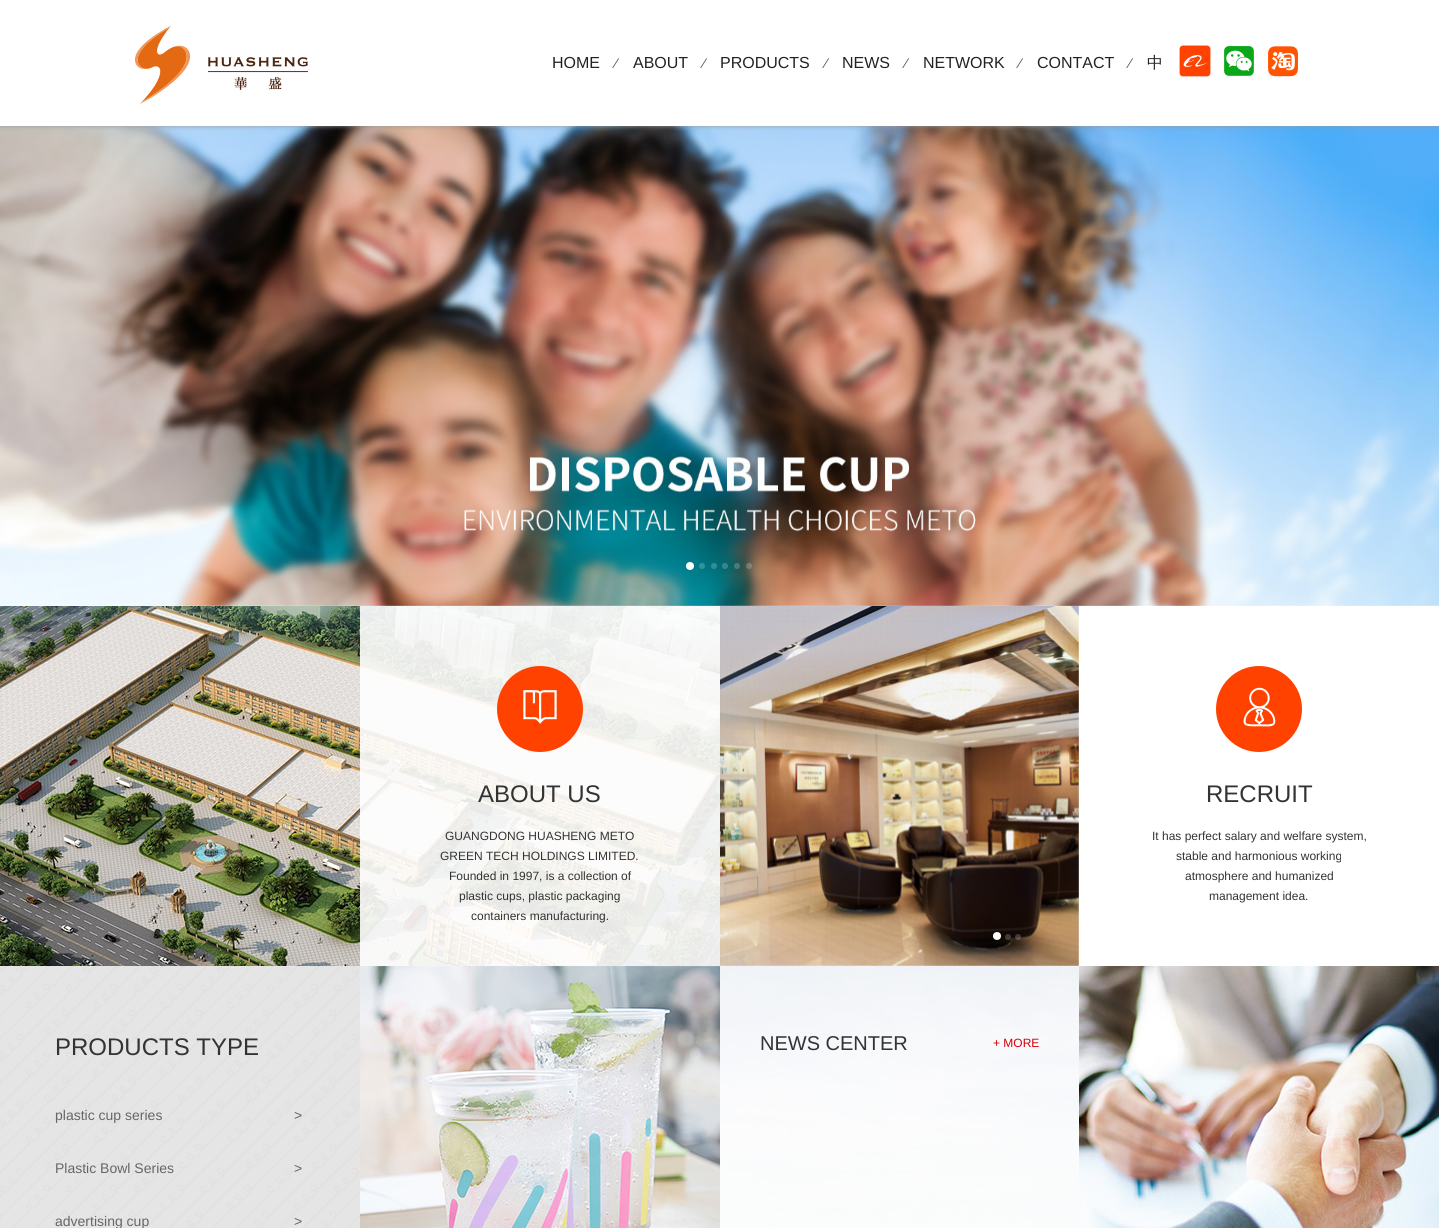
#include <cairo/cairo.h>
#include <math.h>
#include <stddef.h>

typedef struct { double x, y; const char *s; } line_t;
static cairo_t *cr;

static void rgb(unsigned color)
{
	cairo_set_source_rgb(cr, (color >> 16) / 255.0, (color >> 8 & 255) / 255.0, (color & 255) / 255.0);
}

static void rrect(double x, double y, double w, double h, double r)
{
	cairo_new_sub_path(cr);
	cairo_arc(cr, x + w - r, y + h - r, r, 0, M_PI / 2);
	cairo_arc(cr, x + r, y + h - r, r, M_PI / 2, M_PI);
	cairo_arc(cr, x + r, y + r, r, M_PI, 1.5 * M_PI);
	cairo_arc(cr, x + w - r, y + r, r, 1.5 * M_PI, 2 * M_PI);
	cairo_close_path(cr);
}

static void soft_shadow(double x, double y, double w, double h, double r, double blur, double alpha)
{
	cairo_push_group_with_content(cr, CAIRO_CONTENT_ALPHA);
	cairo_set_operator(cr, CAIRO_OPERATOR_SOURCE);
	for (int i = 15; i >= -15 && fmin(w, h) + blur * i / 3 > 0; i -= 2) {
		double e = blur * i / 6;
		cairo_set_source_rgba(cr, 0, 0, 0, alpha * erfc((i - 1) / 8.5) / 2);
		rrect(x - e, y - e, w + 2 * e, h + 2 * e, fmax(0, fmin(r + e + blur * .6, fmin(w, h) / 2 + e)));
		cairo_fill(cr);
	}
	cairo_pattern_t *soft = cairo_pop_group(cr);
	cairo_mask(cr, soft);
	cairo_pattern_destroy(soft);
}

static void image(const char *path, double x, double y, double w, double h)
{
	cairo_surface_t *image = cairo_image_surface_create_from_png(path);
	cairo_save(cr);
	cairo_set_source_surface(cr, image, x, y);
	cairo_rectangle(cr, x, y, w, h);
	cairo_fill(cr);
	cairo_restore(cr);
	cairo_surface_destroy(image);
}

int main(void) {
	cairo_surface_t *surface = cairo_image_surface_create(CAIRO_FORMAT_RGB24, 1439, 1228);
	cr = cairo_create(surface);
	cairo_font_options_t *options = cairo_font_options_create();
	cairo_font_options_set_hint_metrics(options, CAIRO_HINT_METRICS_OFF);
	cairo_font_options_set_hint_style(options, CAIRO_HINT_STYLE_NONE);
	cairo_set_font_options(cr, options);
	cairo_set_miter_limit(cr, 4);
	rgb(0xffffff);
	cairo_paint(cr);
	image("img/5.png", 0, 126, 1439, 480);
	cairo_save(cr);
	cairo_rectangle(cr, 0, 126, 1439, 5);
	cairo_clip(cr);
	rgb(0x999999);
	soft_shadow(0, 0, 1439, 126, 0, 2.5, 1);
	cairo_restore(cr);
	image("img/1.png", 135, 26, 173, 78);
	image("img/2.png", 1179, 45, 32, 32);
	image("img/3.png", 1224, 46, 30, 30);
	image("img/4.png", 1268, 46, 30, 31);
	rgb(0xffffff);
	cairo_arc(cr, 690, 566, 4, 0, 2 * M_PI);
	cairo_fill(cr);
	cairo_set_source_rgba(cr, 1, 1, 1, 0.2);
	cairo_arc(cr, 702, 566, 3, 0, 2 * M_PI);
	cairo_fill(cr);
	cairo_arc(cr, 714, 566, 3, 0, 2 * M_PI);
	cairo_fill(cr);
	cairo_arc(cr, 725, 566, 3, 0, 2 * M_PI);
	cairo_fill(cr);
	cairo_arc(cr, 737, 566, 3, 0, 2 * M_PI);
	cairo_fill(cr);
	cairo_arc(cr, 749, 566, 3, 0, 2 * M_PI);
	cairo_fill(cr);
	image("img/6.png", 0, 606, 720, 360);
	cairo_set_source_rgba(cr, 1, 1, 1, 0.9);
	cairo_rectangle(cr, 360, 606, 360, 360);
	cairo_fill(cr);
	rgb(0xff4200);
	cairo_arc(cr, 540, 709, 43, 0, 2 * M_PI);
	cairo_fill(cr);
	image("img/7.png", 523, 690, 34, 34);
	image("img/8.png", 720, 606, 359, 360);
	rgb(0xffffff);
	cairo_arc(cr, 997, 936, 4, 0, 2 * M_PI);
	cairo_fill(cr);
	cairo_set_source_rgba(cr, 1, 1, 1, 0.2);
	cairo_arc(cr, 1008, 937, 3, 0, 2 * M_PI);
	cairo_fill(cr);
	cairo_arc(cr, 1018, 937, 3, 0, 2 * M_PI);
	cairo_fill(cr);
	rgb(0xff4200);
	cairo_arc(cr, 1259, 709, 43, 0, 2 * M_PI);
	cairo_fill(cr);
	image("img/9.png", 1243, 687, 33, 40);
	image("img/10.png", 0, 966, 360, 262);
	image("img/11.png", 360, 966, 360, 262);
	image("img/12.png", 720, 966, 359, 262);
	image("img/13.png", 1079, 966, 360, 262);
	cairo_select_font_face(cr, "Liberation Sans", CAIRO_FONT_SLANT_NORMAL, CAIRO_FONT_WEIGHT_NORMAL);
	cairo_set_font_size(cr, 16);
	rgb(0x222222);
	cairo_move_to(cr, 552, 68);
	cairo_show_text(cr, "HOME");
	cairo_set_font_size(cr, 14);
	rgb(0x5a5a5a);
	cairo_move_to(cr, 615, 68);
	cairo_show_text(cr, "⁄");
	cairo_set_font_size(cr, 16);
	rgb(0x222222);
	cairo_move_to(cr, 633, 68);
	cairo_show_text(cr, "ABOUT");
	cairo_set_font_size(cr, 14);
	rgb(0x5a5a5a);
	cairo_move_to(cr, 703, 68);
	cairo_show_text(cr, "⁄");
	cairo_set_font_size(cr, 16);
	rgb(0x222222);
	cairo_move_to(cr, 720, 68);
	cairo_show_text(cr, "PRODUCTS");
	cairo_set_font_size(cr, 14);
	rgb(0x5a5a5a);
	cairo_move_to(cr, 825, 68);
	cairo_show_text(cr, "⁄");
	cairo_set_font_size(cr, 16);
	rgb(0x222222);
	cairo_move_to(cr, 842, 68);
	cairo_show_text(cr, "NEWS");
	cairo_set_font_size(cr, 14);
	rgb(0x5a5a5a);
	cairo_move_to(cr, 905, 68);
	cairo_show_text(cr, "⁄");
	cairo_set_font_size(cr, 16);
	rgb(0x222222);
	cairo_move_to(cr, 923, 68);
	cairo_show_text(cr, "NETWORK");
	cairo_set_font_size(cr, 14);
	rgb(0x5a5a5a);
	cairo_move_to(cr, 1019, 68);
	cairo_show_text(cr, "⁄");
	cairo_set_font_size(cr, 16);
	rgb(0x222222);
	cairo_move_to(cr, 1037, 68);
	cairo_show_text(cr, "CONTACT");
	cairo_set_font_size(cr, 14);
	rgb(0x5a5a5a);
	cairo_move_to(cr, 1129, 68);
	cairo_show_text(cr, "⁄");
	cairo_select_font_face(cr, "WenQuanYi Zen Hei Medium", CAIRO_FONT_SLANT_NORMAL, CAIRO_FONT_WEIGHT_NORMAL);
	cairo_set_font_size(cr, 16);
	rgb(0x222222);
	cairo_move_to(cr, 1147, 68);
	cairo_show_text(cr, "中");
	cairo_select_font_face(cr, "Liberation Sans", CAIRO_FONT_SLANT_NORMAL, CAIRO_FONT_WEIGHT_NORMAL);
	cairo_set_font_size(cr, 24);
	rgb(0x333333);
	cairo_move_to(cr, 478, 802);
	cairo_show_text(cr, "ABOUT US");
	cairo_set_font_size(cr, 12);
	{
		static const line_t items[] = {
			{445, 840, "GUANGDONG HUASHENG METO"},
			{440, 860, "GREEN TECH HOLDINGS LIMITED."},
			{449, 880, "Founded in 1997, is a collection of"},
			{459, 900, "plastic cups, plastic packaging"},
			{471, 920, "containers manufacturing."},
		};
		for (size_t i = 0; i < sizeof items / sizeof *items; i++) {
			cairo_move_to(cr, items[i].x, items[i].y);
			cairo_show_text(cr, items[i].s);
		}
	}
	cairo_set_font_size(cr, 24);
	cairo_move_to(cr, 1206, 802);
	cairo_show_text(cr, "RECRUIT");
	cairo_set_font_size(cr, 12);
	{
		static const line_t items[] = {
			{1152, 840, "It has perfect salary and welfare system,"},
			{1176, 860, "stable and harmonious working"},
			{1185, 880, "atmosphere and humanized"},
			{1209, 900, "management idea."},
		};
		for (size_t i = 0; i < sizeof items / sizeof *items; i++) {
			cairo_move_to(cr, items[i].x, items[i].y);
			cairo_show_text(cr, items[i].s);
		}
	}
	cairo_set_font_size(cr, 24);
	cairo_move_to(cr, 55, 1055);
	cairo_show_text(cr, "PRODUCTS TYPE");
	cairo_set_font_size(cr, 14);
	rgb(0x666666);
	{
		static const line_t items[] = {
			{55, 1120, "plastic cup series"},
			{294, 1120, ">"},
			{55, 1173, "Plastic Bowl Series"},
			{294, 1173, ">"},
			{55, 1226, "advertising cup"},
			{294, 1226, ">"},
		};
		for (size_t i = 0; i < sizeof items / sizeof *items; i++) {
			cairo_move_to(cr, items[i].x, items[i].y);
			cairo_show_text(cr, items[i].s);
		}
	}
	cairo_set_font_size(cr, 20);
	rgb(0x333333);
	cairo_move_to(cr, 760, 1050);
	cairo_show_text(cr, "NEWS CENTER");
	cairo_set_font_size(cr, 12);
	rgb(0xd7000f);
	cairo_move_to(cr, 993, 1047);
	cairo_show_text(cr, "+ MORE");
	cairo_surface_write_to_png(surface, "page.png");
	cairo_font_options_destroy(options);
	cairo_destroy(cr);
	cairo_surface_destroy(surface);
	return 0;
}
